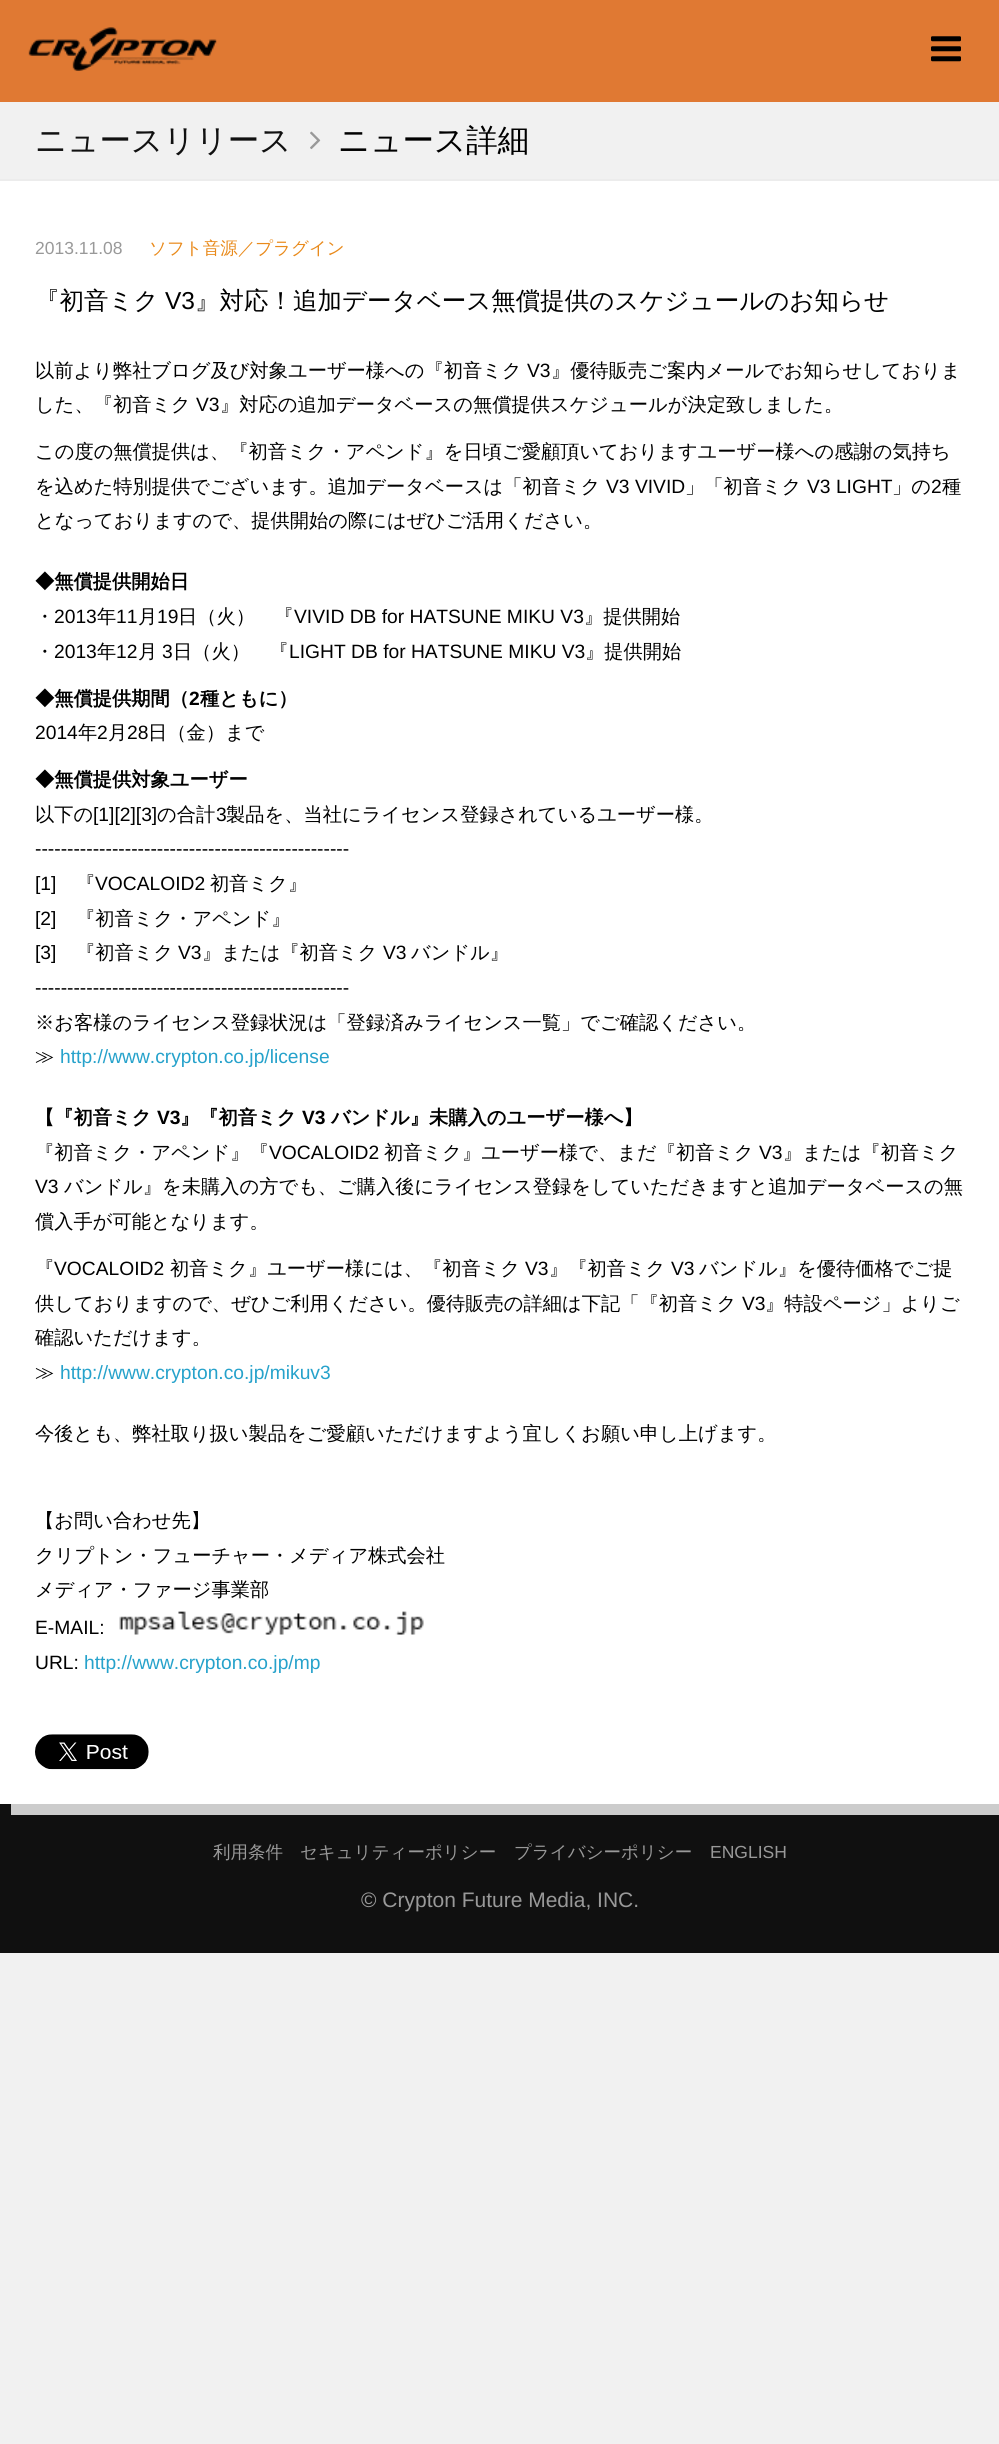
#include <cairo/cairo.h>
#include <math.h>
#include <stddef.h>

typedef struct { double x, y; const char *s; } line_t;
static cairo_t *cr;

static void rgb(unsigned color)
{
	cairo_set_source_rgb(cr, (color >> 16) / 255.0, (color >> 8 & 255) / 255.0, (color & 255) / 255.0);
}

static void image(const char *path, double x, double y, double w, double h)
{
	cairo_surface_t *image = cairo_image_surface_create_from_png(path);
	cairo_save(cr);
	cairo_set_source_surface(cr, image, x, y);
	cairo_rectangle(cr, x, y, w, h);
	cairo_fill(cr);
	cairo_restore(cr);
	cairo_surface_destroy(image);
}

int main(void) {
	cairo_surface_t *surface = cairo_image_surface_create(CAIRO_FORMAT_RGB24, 999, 2444);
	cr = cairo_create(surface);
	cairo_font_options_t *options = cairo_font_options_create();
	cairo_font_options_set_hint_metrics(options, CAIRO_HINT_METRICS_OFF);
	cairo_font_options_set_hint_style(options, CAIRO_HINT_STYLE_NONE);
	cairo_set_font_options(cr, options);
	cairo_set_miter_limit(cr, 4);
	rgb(0xf1f1f1);
	cairo_paint(cr);
	rgb(0xe07933);
	cairo_rectangle(cr, 0, 0, 999, 102);
	cairo_fill(cr);
	image("img/1.png", 28, 27, 189, 44);
	image("img/2.png", 931, 36, 30, 26);
	rgb(0xececec);
	cairo_rectangle(cr, 0, 179, 999, 2);
	cairo_fill(cr);
	image("img/3.png", 310, 131, 11, 19);
	rgb(0xffffff);
	cairo_rectangle(cr, 0, 181, 999, 1623);
	cairo_fill(cr);
	rgb(0x101010);
	cairo_rectangle(cr, 0, 1804, 999, 149);
	cairo_fill(cr);
	rgb(0xcccccc);
	cairo_new_path(cr);
	cairo_move_to(cr, 11, 1804);
	cairo_line_to(cr, 11, 1815);
	cairo_line_to(cr, 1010, 1815);
	cairo_line_to(cr, 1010, 191);
	cairo_line_to(cr, 999, 191);
	cairo_line_to(cr, 999, 1804);
	cairo_close_path(cr);
	cairo_fill(cr);
	image("img/4.png", 119, 1611, 305, 24);
	image("img/5.png", 35, 1734, 114, 36);
	cairo_select_font_face(cr, "WenQuanYi Zen Hei Medium", CAIRO_FONT_SLANT_NORMAL, CAIRO_FONT_WEIGHT_NORMAL);
	cairo_set_font_size(cr, 31.5);
	rgb(0x111111);
	cairo_move_to(cr, 35, 151);
	cairo_show_text(cr, "ニュースリリース");
	rgb(0x000000);
	cairo_move_to(cr, 338, 151);
	cairo_show_text(cr, "ニュース詳細");
	cairo_select_font_face(cr, "Liberation Sans", CAIRO_FONT_SLANT_NORMAL, CAIRO_FONT_WEIGHT_NORMAL);
	cairo_set_font_size(cr, 17.5);
	rgb(0x999999);
	cairo_move_to(cr, 35, 254);
	cairo_show_text(cr, "2013.11.08");
	cairo_select_font_face(cr, "WenQuanYi Zen Hei Medium", CAIRO_FONT_SLANT_NORMAL, CAIRO_FONT_WEIGHT_NORMAL);
	rgb(0xe98a1b);
	cairo_move_to(cr, 149, 254);
	cairo_show_text(cr, "ソフト音源／プラグイン");
	cairo_set_font_size(cr, 24.5);
	rgb(0x000000);
	cairo_move_to(cr, 35, 309);
	cairo_show_text(cr, "『初音ミク");
	cairo_select_font_face(cr, "Liberation Sans", CAIRO_FONT_SLANT_NORMAL, CAIRO_FONT_WEIGHT_NORMAL);
	cairo_move_to(cr, 165, 309);
	cairo_show_text(cr, "V3");
	cairo_select_font_face(cr, "WenQuanYi Zen Hei Medium", CAIRO_FONT_SLANT_NORMAL, CAIRO_FONT_WEIGHT_NORMAL);
	cairo_move_to(cr, 195, 309);
	cairo_show_text(cr, "』対応！追加データベース無償提供のスケジュールのお知らせ");
	cairo_set_font_size(cr, 19.25);
	cairo_move_to(cr, 35, 377);
	cairo_show_text(cr, "以前より弊社ブログ及び対象ユーザー様への『初音ミク");
	cairo_select_font_face(cr, "Liberation Sans", CAIRO_FONT_SLANT_NORMAL, CAIRO_FONT_WEIGHT_NORMAL);
	cairo_move_to(cr, 527, 377);
	cairo_show_text(cr, "V3");
	cairo_select_font_face(cr, "WenQuanYi Zen Hei Medium", CAIRO_FONT_SLANT_NORMAL, CAIRO_FONT_WEIGHT_NORMAL);
	cairo_move_to(cr, 551, 377);
	cairo_show_text(cr, "』優待販売ご案内メールでお知らせしておりま");
	cairo_move_to(cr, 35, 411);
	cairo_show_text(cr, "した、『初音ミク");
	cairo_select_font_face(cr, "Liberation Sans", CAIRO_FONT_SLANT_NORMAL, CAIRO_FONT_WEIGHT_NORMAL);
	cairo_move_to(cr, 196, 411);
	cairo_show_text(cr, "V3");
	cairo_select_font_face(cr, "WenQuanYi Zen Hei Medium", CAIRO_FONT_SLANT_NORMAL, CAIRO_FONT_WEIGHT_NORMAL);
	{
		static const line_t items[] = {
			{220, 411, "』対応の追加データベースの無償提供スケジュールが決定致しました。"},
			{35, 458, "この度の無償提供は、『初音ミク・アペンド』を日頃ご愛顧頂いておりますユーザー様への感謝の気持ち"},
			{35, 493, "を込めた特別提供でございます。追加データベースは「初音ミク"},
		};
		for (size_t i = 0; i < sizeof items / sizeof *items; i++) {
			cairo_move_to(cr, items[i].x, items[i].y);
			cairo_show_text(cr, items[i].s);
		}
	}
	cairo_select_font_face(cr, "Liberation Sans", CAIRO_FONT_SLANT_NORMAL, CAIRO_FONT_WEIGHT_NORMAL);
	cairo_move_to(cr, 606, 493);
	cairo_show_text(cr, "V3 VIVID");
	cairo_select_font_face(cr, "WenQuanYi Zen Hei Medium", CAIRO_FONT_SLANT_NORMAL, CAIRO_FONT_WEIGHT_NORMAL);
	cairo_move_to(cr, 685, 493);
	cairo_show_text(cr, "」「初音ミク");
	cairo_select_font_face(cr, "Liberation Sans", CAIRO_FONT_SLANT_NORMAL, CAIRO_FONT_WEIGHT_NORMAL);
	cairo_move_to(cr, 807, 493);
	cairo_show_text(cr, "V3 LIGHT");
	cairo_select_font_face(cr, "WenQuanYi Zen Hei Medium", CAIRO_FONT_SLANT_NORMAL, CAIRO_FONT_WEIGHT_NORMAL);
	cairo_move_to(cr, 892, 493);
	cairo_show_text(cr, "」の");
	cairo_select_font_face(cr, "Liberation Sans", CAIRO_FONT_SLANT_NORMAL, CAIRO_FONT_WEIGHT_NORMAL);
	cairo_move_to(cr, 931, 493);
	cairo_show_text(cr, "2");
	cairo_select_font_face(cr, "WenQuanYi Zen Hei Medium", CAIRO_FONT_SLANT_NORMAL, CAIRO_FONT_WEIGHT_NORMAL);
	cairo_move_to(cr, 942, 493);
	cairo_show_text(cr, "種");
	cairo_move_to(cr, 35, 527);
	cairo_show_text(cr, "となっておりますので、提供開始の際にはぜひご活用ください。");
	cairo_select_font_face(cr, "WenQuanYi Zen Hei", CAIRO_FONT_SLANT_NORMAL, CAIRO_FONT_WEIGHT_BOLD);
	cairo_move_to(cr, 35, 588);
	cairo_show_text(cr, "◆無償提供開始日");
	cairo_select_font_face(cr, "WenQuanYi Zen Hei Medium", CAIRO_FONT_SLANT_NORMAL, CAIRO_FONT_WEIGHT_NORMAL);
	cairo_move_to(cr, 35, 623);
	cairo_show_text(cr, "・");
	cairo_select_font_face(cr, "Liberation Sans", CAIRO_FONT_SLANT_NORMAL, CAIRO_FONT_WEIGHT_NORMAL);
	cairo_move_to(cr, 54, 623);
	cairo_show_text(cr, "2013");
	cairo_select_font_face(cr, "WenQuanYi Zen Hei Medium", CAIRO_FONT_SLANT_NORMAL, CAIRO_FONT_WEIGHT_NORMAL);
	cairo_move_to(cr, 97, 623);
	cairo_show_text(cr, "年");
	cairo_select_font_face(cr, "Liberation Sans", CAIRO_FONT_SLANT_NORMAL, CAIRO_FONT_WEIGHT_NORMAL);
	cairo_move_to(cr, 116, 623);
	cairo_show_text(cr, "11");
	cairo_select_font_face(cr, "WenQuanYi Zen Hei Medium", CAIRO_FONT_SLANT_NORMAL, CAIRO_FONT_WEIGHT_NORMAL);
	cairo_move_to(cr, 138, 623);
	cairo_show_text(cr, "月");
	cairo_select_font_face(cr, "Liberation Sans", CAIRO_FONT_SLANT_NORMAL, CAIRO_FONT_WEIGHT_NORMAL);
	cairo_move_to(cr, 157, 623);
	cairo_show_text(cr, "19");
	cairo_select_font_face(cr, "WenQuanYi Zen Hei Medium", CAIRO_FONT_SLANT_NORMAL, CAIRO_FONT_WEIGHT_NORMAL);
	cairo_move_to(cr, 178, 623);
	cairo_show_text(cr, "日（火）　『");
	cairo_select_font_face(cr, "Liberation Sans", CAIRO_FONT_SLANT_NORMAL, CAIRO_FONT_WEIGHT_NORMAL);
	cairo_move_to(cr, 294, 623);
	cairo_show_text(cr, "VIVID DB for HATSUNE MIKU V3");
	cairo_select_font_face(cr, "WenQuanYi Zen Hei Medium", CAIRO_FONT_SLANT_NORMAL, CAIRO_FONT_WEIGHT_NORMAL);
	cairo_move_to(cr, 584, 623);
	cairo_show_text(cr, "』提供開始");
	cairo_move_to(cr, 35, 658);
	cairo_show_text(cr, "・");
	cairo_select_font_face(cr, "Liberation Sans", CAIRO_FONT_SLANT_NORMAL, CAIRO_FONT_WEIGHT_NORMAL);
	cairo_move_to(cr, 54, 658);
	cairo_show_text(cr, "2013");
	cairo_select_font_face(cr, "WenQuanYi Zen Hei Medium", CAIRO_FONT_SLANT_NORMAL, CAIRO_FONT_WEIGHT_NORMAL);
	cairo_move_to(cr, 97, 658);
	cairo_show_text(cr, "年");
	cairo_select_font_face(cr, "Liberation Sans", CAIRO_FONT_SLANT_NORMAL, CAIRO_FONT_WEIGHT_NORMAL);
	cairo_move_to(cr, 116, 658);
	cairo_show_text(cr, "12");
	cairo_select_font_face(cr, "WenQuanYi Zen Hei Medium", CAIRO_FONT_SLANT_NORMAL, CAIRO_FONT_WEIGHT_NORMAL);
	cairo_move_to(cr, 138, 658);
	cairo_show_text(cr, "月");
	cairo_select_font_face(cr, "Liberation Sans", CAIRO_FONT_SLANT_NORMAL, CAIRO_FONT_WEIGHT_NORMAL);
	cairo_move_to(cr, 162, 658);
	cairo_show_text(cr, "3");
	cairo_select_font_face(cr, "WenQuanYi Zen Hei Medium", CAIRO_FONT_SLANT_NORMAL, CAIRO_FONT_WEIGHT_NORMAL);
	cairo_move_to(cr, 173, 658);
	cairo_show_text(cr, "日（火）　『");
	cairo_select_font_face(cr, "Liberation Sans", CAIRO_FONT_SLANT_NORMAL, CAIRO_FONT_WEIGHT_NORMAL);
	cairo_move_to(cr, 289, 658);
	cairo_show_text(cr, "LIGHT DB for HATSUNE MIKU V3");
	cairo_select_font_face(cr, "WenQuanYi Zen Hei Medium", CAIRO_FONT_SLANT_NORMAL, CAIRO_FONT_WEIGHT_NORMAL);
	cairo_move_to(cr, 585, 658);
	cairo_show_text(cr, "』提供開始");
	cairo_select_font_face(cr, "WenQuanYi Zen Hei", CAIRO_FONT_SLANT_NORMAL, CAIRO_FONT_WEIGHT_BOLD);
	cairo_move_to(cr, 35, 705);
	cairo_show_text(cr, "◆無償提供期間（");
	cairo_select_font_face(cr, "Liberation Sans", CAIRO_FONT_SLANT_NORMAL, CAIRO_FONT_WEIGHT_BOLD);
	cairo_move_to(cr, 189, 705);
	cairo_show_text(cr, "2");
	cairo_select_font_face(cr, "WenQuanYi Zen Hei", CAIRO_FONT_SLANT_NORMAL, CAIRO_FONT_WEIGHT_BOLD);
	cairo_move_to(cr, 200, 705);
	cairo_show_text(cr, "種ともに）");
	cairo_select_font_face(cr, "Liberation Sans", CAIRO_FONT_SLANT_NORMAL, CAIRO_FONT_WEIGHT_NORMAL);
	cairo_move_to(cr, 35, 739);
	cairo_show_text(cr, "2014");
	cairo_select_font_face(cr, "WenQuanYi Zen Hei Medium", CAIRO_FONT_SLANT_NORMAL, CAIRO_FONT_WEIGHT_NORMAL);
	cairo_move_to(cr, 78, 739);
	cairo_show_text(cr, "年");
	cairo_select_font_face(cr, "Liberation Sans", CAIRO_FONT_SLANT_NORMAL, CAIRO_FONT_WEIGHT_NORMAL);
	cairo_move_to(cr, 97, 739);
	cairo_show_text(cr, "2");
	cairo_select_font_face(cr, "WenQuanYi Zen Hei Medium", CAIRO_FONT_SLANT_NORMAL, CAIRO_FONT_WEIGHT_NORMAL);
	cairo_move_to(cr, 108, 739);
	cairo_show_text(cr, "月");
	cairo_select_font_face(cr, "Liberation Sans", CAIRO_FONT_SLANT_NORMAL, CAIRO_FONT_WEIGHT_NORMAL);
	cairo_move_to(cr, 127, 739);
	cairo_show_text(cr, "28");
	cairo_select_font_face(cr, "WenQuanYi Zen Hei Medium", CAIRO_FONT_SLANT_NORMAL, CAIRO_FONT_WEIGHT_NORMAL);
	cairo_move_to(cr, 148, 739);
	cairo_show_text(cr, "日（金）まで");
	cairo_select_font_face(cr, "WenQuanYi Zen Hei", CAIRO_FONT_SLANT_NORMAL, CAIRO_FONT_WEIGHT_BOLD);
	cairo_move_to(cr, 35, 786);
	cairo_show_text(cr, "◆無償提供対象ユーザー");
	cairo_select_font_face(cr, "WenQuanYi Zen Hei Medium", CAIRO_FONT_SLANT_NORMAL, CAIRO_FONT_WEIGHT_NORMAL);
	cairo_move_to(cr, 35, 821);
	cairo_show_text(cr, "以下の");
	cairo_select_font_face(cr, "Liberation Sans", CAIRO_FONT_SLANT_NORMAL, CAIRO_FONT_WEIGHT_NORMAL);
	cairo_move_to(cr, 93, 821);
	cairo_show_text(cr, "[1][2][3]");
	cairo_select_font_face(cr, "WenQuanYi Zen Hei Medium", CAIRO_FONT_SLANT_NORMAL, CAIRO_FONT_WEIGHT_NORMAL);
	cairo_move_to(cr, 157, 821);
	cairo_show_text(cr, "の合計");
	cairo_select_font_face(cr, "Liberation Sans", CAIRO_FONT_SLANT_NORMAL, CAIRO_FONT_WEIGHT_NORMAL);
	cairo_move_to(cr, 216, 821);
	cairo_show_text(cr, "3");
	cairo_select_font_face(cr, "WenQuanYi Zen Hei Medium", CAIRO_FONT_SLANT_NORMAL, CAIRO_FONT_WEIGHT_NORMAL);
	cairo_move_to(cr, 226, 821);
	cairo_show_text(cr, "製品を、当社にライセンス登録されているユーザー様。");
	cairo_select_font_face(cr, "Liberation Sans", CAIRO_FONT_SLANT_NORMAL, CAIRO_FONT_WEIGHT_NORMAL);
	cairo_move_to(cr, 35, 855);
	cairo_show_text(cr, "-------------------------------------------------");
	cairo_move_to(cr, 35, 890);
	cairo_show_text(cr, "[1]");
	cairo_select_font_face(cr, "WenQuanYi Zen Hei Medium", CAIRO_FONT_SLANT_NORMAL, CAIRO_FONT_WEIGHT_NORMAL);
	cairo_move_to(cr, 76, 890);
	cairo_show_text(cr, "『");
	cairo_select_font_face(cr, "Liberation Sans", CAIRO_FONT_SLANT_NORMAL, CAIRO_FONT_WEIGHT_NORMAL);
	cairo_move_to(cr, 95, 890);
	cairo_show_text(cr, "VOCALOID2");
	cairo_select_font_face(cr, "WenQuanYi Zen Hei Medium", CAIRO_FONT_SLANT_NORMAL, CAIRO_FONT_WEIGHT_NORMAL);
	cairo_move_to(cr, 210, 890);
	cairo_show_text(cr, "初音ミク』");
	cairo_select_font_face(cr, "Liberation Sans", CAIRO_FONT_SLANT_NORMAL, CAIRO_FONT_WEIGHT_NORMAL);
	cairo_move_to(cr, 35, 925);
	cairo_show_text(cr, "[2]");
	cairo_select_font_face(cr, "WenQuanYi Zen Hei Medium", CAIRO_FONT_SLANT_NORMAL, CAIRO_FONT_WEIGHT_NORMAL);
	cairo_move_to(cr, 76, 925);
	cairo_show_text(cr, "『初音ミク・アペンド』");
	cairo_select_font_face(cr, "Liberation Sans", CAIRO_FONT_SLANT_NORMAL, CAIRO_FONT_WEIGHT_NORMAL);
	cairo_move_to(cr, 35, 959);
	cairo_show_text(cr, "[3]");
	cairo_select_font_face(cr, "WenQuanYi Zen Hei Medium", CAIRO_FONT_SLANT_NORMAL, CAIRO_FONT_WEIGHT_NORMAL);
	cairo_move_to(cr, 76, 959);
	cairo_show_text(cr, "『初音ミク");
	cairo_select_font_face(cr, "Liberation Sans", CAIRO_FONT_SLANT_NORMAL, CAIRO_FONT_WEIGHT_NORMAL);
	cairo_move_to(cr, 178, 959);
	cairo_show_text(cr, "V3");
	cairo_select_font_face(cr, "WenQuanYi Zen Hei Medium", CAIRO_FONT_SLANT_NORMAL, CAIRO_FONT_WEIGHT_NORMAL);
	cairo_move_to(cr, 202, 959);
	cairo_show_text(cr, "』または『初音ミク");
	cairo_select_font_face(cr, "Liberation Sans", CAIRO_FONT_SLANT_NORMAL, CAIRO_FONT_WEIGHT_NORMAL);
	cairo_move_to(cr, 383, 959);
	cairo_show_text(cr, "V3");
	cairo_select_font_face(cr, "WenQuanYi Zen Hei Medium", CAIRO_FONT_SLANT_NORMAL, CAIRO_FONT_WEIGHT_NORMAL);
	cairo_move_to(cr, 411, 959);
	cairo_show_text(cr, "バンドル』");
	cairo_select_font_face(cr, "Liberation Sans", CAIRO_FONT_SLANT_NORMAL, CAIRO_FONT_WEIGHT_NORMAL);
	cairo_move_to(cr, 35, 994);
	cairo_show_text(cr, "-------------------------------------------------");
	cairo_select_font_face(cr, "WenQuanYi Zen Hei Medium", CAIRO_FONT_SLANT_NORMAL, CAIRO_FONT_WEIGHT_NORMAL);
	cairo_move_to(cr, 35, 1029);
	cairo_show_text(cr, "※お客様のライセンス登録状況は「登録済みライセンス一覧」でご確認ください。");
	cairo_move_to(cr, 35, 1063);
	cairo_show_text(cr, "≫");
	cairo_select_font_face(cr, "Liberation Sans", CAIRO_FONT_SLANT_NORMAL, CAIRO_FONT_WEIGHT_NORMAL);
	rgb(0x26a2cb);
	cairo_move_to(cr, 60, 1063);
	cairo_show_text(cr, "http://www.crypton.co.jp/license");
	cairo_select_font_face(cr, "WenQuanYi Zen Hei", CAIRO_FONT_SLANT_NORMAL, CAIRO_FONT_WEIGHT_BOLD);
	rgb(0x000000);
	cairo_move_to(cr, 35, 1124);
	cairo_show_text(cr, "【『初音ミク");
	cairo_select_font_face(cr, "Liberation Sans", CAIRO_FONT_SLANT_NORMAL, CAIRO_FONT_WEIGHT_BOLD);
	cairo_move_to(cr, 157, 1124);
	cairo_show_text(cr, "V3");
	cairo_select_font_face(cr, "WenQuanYi Zen Hei", CAIRO_FONT_SLANT_NORMAL, CAIRO_FONT_WEIGHT_BOLD);
	cairo_move_to(cr, 180, 1124);
	cairo_show_text(cr, "』『初音ミク");
	cairo_select_font_face(cr, "Liberation Sans", CAIRO_FONT_SLANT_NORMAL, CAIRO_FONT_WEIGHT_BOLD);
	cairo_move_to(cr, 302, 1124);
	cairo_show_text(cr, "V3");
	cairo_select_font_face(cr, "WenQuanYi Zen Hei", CAIRO_FONT_SLANT_NORMAL, CAIRO_FONT_WEIGHT_BOLD);
	cairo_move_to(cr, 331, 1124);
	cairo_show_text(cr, "バンドル』未購入のユーザー様へ】");
	cairo_select_font_face(cr, "WenQuanYi Zen Hei Medium", CAIRO_FONT_SLANT_NORMAL, CAIRO_FONT_WEIGHT_NORMAL);
	cairo_move_to(cr, 35, 1159);
	cairo_show_text(cr, "『初音ミク・アペンド』『");
	cairo_select_font_face(cr, "Liberation Sans", CAIRO_FONT_SLANT_NORMAL, CAIRO_FONT_WEIGHT_NORMAL);
	cairo_move_to(cr, 269, 1159);
	cairo_show_text(cr, "VOCALOID2");
	cairo_select_font_face(cr, "WenQuanYi Zen Hei Medium", CAIRO_FONT_SLANT_NORMAL, CAIRO_FONT_WEIGHT_NORMAL);
	cairo_move_to(cr, 384, 1159);
	cairo_show_text(cr, "初音ミク』ユーザー様で、まだ『初音ミク");
	cairo_select_font_face(cr, "Liberation Sans", CAIRO_FONT_SLANT_NORMAL, CAIRO_FONT_WEIGHT_NORMAL);
	cairo_move_to(cr, 759, 1159);
	cairo_show_text(cr, "V3");
	cairo_select_font_face(cr, "WenQuanYi Zen Hei Medium", CAIRO_FONT_SLANT_NORMAL, CAIRO_FONT_WEIGHT_NORMAL);
	cairo_move_to(cr, 783, 1159);
	cairo_show_text(cr, "』または『初音ミク");
	cairo_select_font_face(cr, "Liberation Sans", CAIRO_FONT_SLANT_NORMAL, CAIRO_FONT_WEIGHT_NORMAL);
	cairo_move_to(cr, 35, 1193);
	cairo_show_text(cr, "V3");
	cairo_select_font_face(cr, "WenQuanYi Zen Hei Medium", CAIRO_FONT_SLANT_NORMAL, CAIRO_FONT_WEIGHT_NORMAL);
	{
		static const line_t items[] = {
			{64, 1193, "バンドル』を未購入の方でも、ご購入後にライセンス登録をしていただきますと追加データベースの無"},
			{35, 1228, "償入手が可能となります。"},
			{35, 1275, "『"},
		};
		for (size_t i = 0; i < sizeof items / sizeof *items; i++) {
			cairo_move_to(cr, items[i].x, items[i].y);
			cairo_show_text(cr, items[i].s);
		}
	}
	cairo_select_font_face(cr, "Liberation Sans", CAIRO_FONT_SLANT_NORMAL, CAIRO_FONT_WEIGHT_NORMAL);
	cairo_move_to(cr, 54, 1275);
	cairo_show_text(cr, "VOCALOID2");
	cairo_select_font_face(cr, "WenQuanYi Zen Hei Medium", CAIRO_FONT_SLANT_NORMAL, CAIRO_FONT_WEIGHT_NORMAL);
	cairo_move_to(cr, 170, 1275);
	cairo_show_text(cr, "初音ミク』ユーザー様には、『初音ミク");
	cairo_select_font_face(cr, "Liberation Sans", CAIRO_FONT_SLANT_NORMAL, CAIRO_FONT_WEIGHT_NORMAL);
	cairo_move_to(cr, 525, 1275);
	cairo_show_text(cr, "V3");
	cairo_select_font_face(cr, "WenQuanYi Zen Hei Medium", CAIRO_FONT_SLANT_NORMAL, CAIRO_FONT_WEIGHT_NORMAL);
	cairo_move_to(cr, 549, 1275);
	cairo_show_text(cr, "』『初音ミク");
	cairo_select_font_face(cr, "Liberation Sans", CAIRO_FONT_SLANT_NORMAL, CAIRO_FONT_WEIGHT_NORMAL);
	cairo_move_to(cr, 671, 1275);
	cairo_show_text(cr, "V3");
	cairo_select_font_face(cr, "WenQuanYi Zen Hei Medium", CAIRO_FONT_SLANT_NORMAL, CAIRO_FONT_WEIGHT_NORMAL);
	cairo_move_to(cr, 699, 1275);
	cairo_show_text(cr, "バンドル』を優待価格でご提");
	cairo_move_to(cr, 35, 1310);
	cairo_show_text(cr, "供しておりますので、ぜひご利用ください。優待販売の詳細は下記「『初音ミク");
	cairo_select_font_face(cr, "Liberation Sans", CAIRO_FONT_SLANT_NORMAL, CAIRO_FONT_WEIGHT_NORMAL);
	cairo_move_to(cr, 742, 1310);
	cairo_show_text(cr, "V3");
	cairo_select_font_face(cr, "WenQuanYi Zen Hei Medium", CAIRO_FONT_SLANT_NORMAL, CAIRO_FONT_WEIGHT_NORMAL);
	{
		static const line_t items[] = {
			{765, 1310, "』特設ページ」よりご"},
			{35, 1344, "確認いただけます。"},
			{35, 1379, "≫"},
		};
		for (size_t i = 0; i < sizeof items / sizeof *items; i++) {
			cairo_move_to(cr, items[i].x, items[i].y);
			cairo_show_text(cr, items[i].s);
		}
	}
	cairo_select_font_face(cr, "Liberation Sans", CAIRO_FONT_SLANT_NORMAL, CAIRO_FONT_WEIGHT_NORMAL);
	rgb(0x26a2cb);
	cairo_move_to(cr, 60, 1379);
	cairo_show_text(cr, "http://www.crypton.co.jp/mikuv3");
	cairo_select_font_face(cr, "WenQuanYi Zen Hei Medium", CAIRO_FONT_SLANT_NORMAL, CAIRO_FONT_WEIGHT_NORMAL);
	rgb(0x000000);
	{
		static const line_t items[] = {
			{35, 1440, "今後とも、弊社取り扱い製品をご愛顧いただけますよう宜しくお願い申し上げます。"},
			{35, 1527, "【お問い合わせ先】"},
			{35, 1562, "クリプトン・フューチャー・メディア株式会社"},
			{35, 1596, "メディア・ファージ事業部"},
		};
		for (size_t i = 0; i < sizeof items / sizeof *items; i++) {
			cairo_move_to(cr, items[i].x, items[i].y);
			cairo_show_text(cr, items[i].s);
		}
	}
	cairo_select_font_face(cr, "Liberation Sans", CAIRO_FONT_SLANT_NORMAL, CAIRO_FONT_WEIGHT_NORMAL);
	cairo_move_to(cr, 35, 1634);
	cairo_show_text(cr, "E-MAIL:");
	cairo_move_to(cr, 35, 1669);
	cairo_show_text(cr, "URL:");
	rgb(0x26a2cb);
	cairo_move_to(cr, 84, 1669);
	cairo_show_text(cr, "http://www.crypton.co.jp/mp");
	cairo_select_font_face(cr, "WenQuanYi Zen Hei Medium", CAIRO_FONT_SLANT_NORMAL, CAIRO_FONT_WEIGHT_NORMAL);
	cairo_set_font_size(cr, 17.5);
	rgb(0x999999);
	{
		static const line_t items[] = {
			{213, 1858, "利用条件"},
			{300, 1858, "セキュリティーポリシー"},
			{514, 1858, "プライバシーポリシー"},
		};
		for (size_t i = 0; i < sizeof items / sizeof *items; i++) {
			cairo_move_to(cr, items[i].x, items[i].y);
			cairo_show_text(cr, items[i].s);
		}
	}
	cairo_select_font_face(cr, "Liberation Sans", CAIRO_FONT_SLANT_NORMAL, CAIRO_FONT_WEIGHT_NORMAL);
	cairo_move_to(cr, 710, 1858);
	cairo_show_text(cr, "ENGLISH");
	cairo_set_font_size(cr, 21);
	cairo_move_to(cr, 361, 1907);
	cairo_show_text(cr, "© Crypton Future Media, INC.");
	cairo_surface_write_to_png(surface, "page.png");
	cairo_font_options_destroy(options);
	cairo_destroy(cr);
	cairo_surface_destroy(surface);
	return 0;
}
